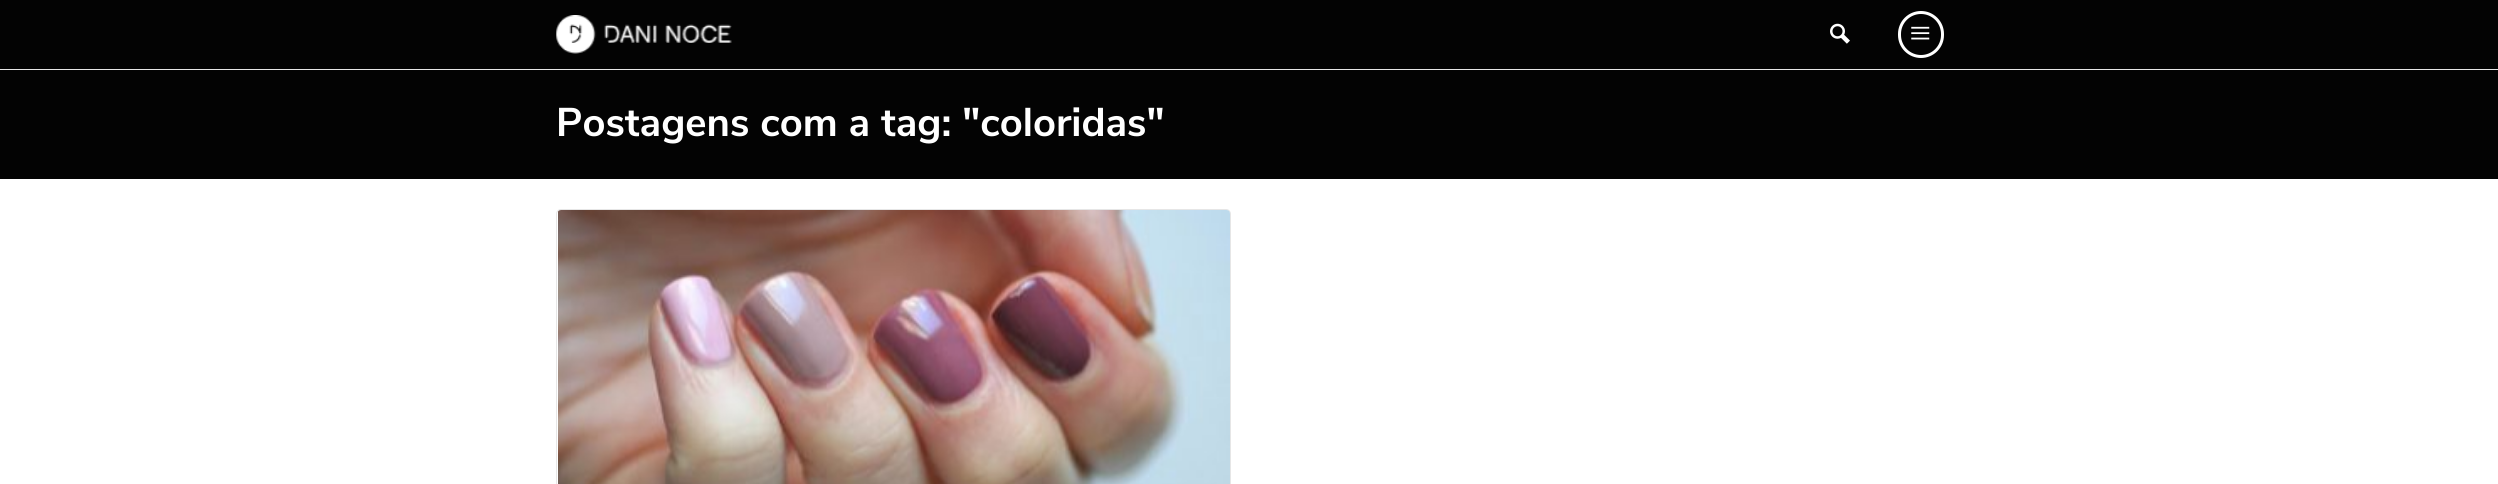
#include <cairo/cairo.h>
#include <math.h>
#include <stddef.h>

static cairo_t *cr;

static void rgb(unsigned color)
{
	cairo_set_source_rgb(cr, (color >> 16) / 255.0, (color >> 8 & 255) / 255.0, (color & 255) / 255.0);
}

static void rrect(double x, double y, double w, double h, double r)
{
	cairo_new_sub_path(cr);
	cairo_arc(cr, x + w - r, y + h - r, r, 0, M_PI / 2);
	cairo_arc(cr, x + r, y + h - r, r, M_PI / 2, M_PI);
	cairo_arc(cr, x + r, y + r, r, M_PI, 1.5 * M_PI);
	cairo_arc(cr, x + w - r, y + r, r, 1.5 * M_PI, 2 * M_PI);
	cairo_close_path(cr);
}

static void image(const char *path, double x, double y, double w, double h)
{
	cairo_surface_t *image = cairo_image_surface_create_from_png(path);
	cairo_save(cr);
	cairo_set_source_surface(cr, image, x, y);
	cairo_rectangle(cr, x, y, w, h);
	cairo_fill(cr);
	cairo_restore(cr);
	cairo_surface_destroy(image);
}

int main(void) {
	cairo_surface_t *surface = cairo_image_surface_create(CAIRO_FORMAT_RGB24, 2498, 484);
	cr = cairo_create(surface);
	cairo_font_options_t *options = cairo_font_options_create();
	cairo_font_options_set_hint_metrics(options, CAIRO_HINT_METRICS_OFF);
	cairo_font_options_set_hint_style(options, CAIRO_HINT_STYLE_NONE);
	cairo_set_font_options(cr, options);
	cairo_set_miter_limit(cr, 4);
	rgb(0xffffff);
	cairo_paint(cr);
	rgb(0xe6e6e6);
	cairo_rectangle(cr, 0, 69, 2498, 1);
	cairo_fill(cr);
	rgb(0x030303);
	cairo_rectangle(cr, 0, 0, 2498, 69);
	cairo_fill(cr);
	image("img/1.png", 556, 15, 176, 39);
	image("img/2.png", 1830, 23, 20, 21);
	rrect(1899.5, 12.5, 43, 44, 21.5);
	rgb(0xffffff);
	cairo_set_line_width(cr, 3);
	cairo_stroke(cr);
	image("img/3.png", 1911, 26, 19, 14);
	rgb(0x030303);
	cairo_rectangle(cr, 0, 70, 2498, 109);
	cairo_fill(cr);
	rrect(556.5, 209.5, 674, 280, 4.5);
	rgb(0xe6e6e6);
	cairo_set_line_width(cr, 1);
	cairo_stroke(cr);
	image("img/4.png", 558, 210, 672, 274);
	cairo_select_font_face(cr, "Nunito Sans", CAIRO_FONT_SLANT_NORMAL, CAIRO_FONT_WEIGHT_BOLD);
	cairo_set_font_size(cr, 40);
	rgb(0xffffff);
	cairo_move_to(cr, 556, 136);
	cairo_show_text(cr, "Postagens com a tag: \"coloridas\"");
	cairo_surface_write_to_png(surface, "page.png");
	cairo_font_options_destroy(options);
	cairo_destroy(cr);
	cairo_surface_destroy(surface);
	return 0;
}
